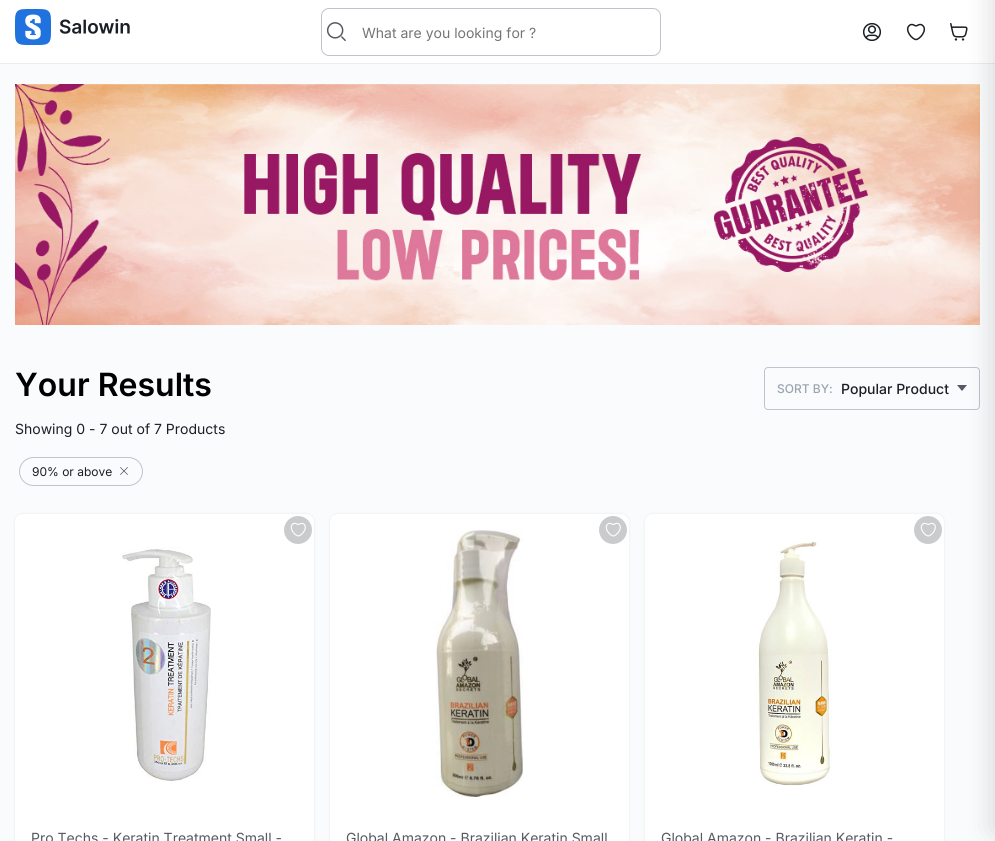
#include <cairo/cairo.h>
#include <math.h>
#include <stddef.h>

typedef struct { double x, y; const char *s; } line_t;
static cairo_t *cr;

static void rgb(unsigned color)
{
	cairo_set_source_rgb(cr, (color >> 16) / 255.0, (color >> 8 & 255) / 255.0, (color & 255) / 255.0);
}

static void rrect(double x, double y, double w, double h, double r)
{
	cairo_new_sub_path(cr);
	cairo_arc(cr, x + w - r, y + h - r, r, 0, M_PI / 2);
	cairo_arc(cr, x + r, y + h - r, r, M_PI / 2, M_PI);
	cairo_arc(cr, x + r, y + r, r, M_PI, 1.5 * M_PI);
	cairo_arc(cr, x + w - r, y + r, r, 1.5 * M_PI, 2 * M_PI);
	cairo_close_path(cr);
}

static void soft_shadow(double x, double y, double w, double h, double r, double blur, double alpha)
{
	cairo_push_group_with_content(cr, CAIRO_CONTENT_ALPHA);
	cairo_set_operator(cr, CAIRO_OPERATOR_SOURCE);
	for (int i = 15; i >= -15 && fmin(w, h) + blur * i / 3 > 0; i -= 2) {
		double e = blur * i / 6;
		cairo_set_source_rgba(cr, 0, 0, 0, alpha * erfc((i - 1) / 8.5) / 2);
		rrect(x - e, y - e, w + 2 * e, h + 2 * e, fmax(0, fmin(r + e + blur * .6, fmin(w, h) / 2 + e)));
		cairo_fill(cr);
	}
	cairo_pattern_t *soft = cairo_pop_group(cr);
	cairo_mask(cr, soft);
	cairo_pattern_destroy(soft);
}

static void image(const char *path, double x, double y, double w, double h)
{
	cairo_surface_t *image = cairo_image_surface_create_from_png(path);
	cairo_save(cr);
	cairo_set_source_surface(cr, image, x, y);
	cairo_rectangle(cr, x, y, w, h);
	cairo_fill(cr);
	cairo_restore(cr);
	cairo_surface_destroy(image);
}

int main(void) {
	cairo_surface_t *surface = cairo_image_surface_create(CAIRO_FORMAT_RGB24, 995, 841);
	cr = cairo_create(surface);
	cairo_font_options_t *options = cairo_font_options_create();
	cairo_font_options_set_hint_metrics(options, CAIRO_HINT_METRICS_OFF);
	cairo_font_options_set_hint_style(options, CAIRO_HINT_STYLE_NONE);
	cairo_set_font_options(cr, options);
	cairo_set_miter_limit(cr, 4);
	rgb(0xfafbfc);
	cairo_paint(cr);
	rgb(0xffffff);
	cairo_rectangle(cr, 0, 0, 995, 63);
	cairo_fill(cr);
	rgb(0xebecf0);
	cairo_rectangle(cr, 0, 63, 995, 1);
	cairo_fill(cr);
	image("img/1.png", 15, 9, 115, 36);
	rrect(321.5, 8.5, 339, 47, 7.5);
	rgb(0xc0c3ce);
	cairo_set_line_width(cr, 1);
	cairo_stroke(cr);
	image("img/2.png", 326, 22, 20, 19);
	image("img/3.png", 862, 22, 20, 20);
	image("img/4.png", 906, 23, 20, 18);
	image("img/5.png", 950, 23, 18, 18);
	image("img/6.png", 15, 84, 965, 241);
	rrect(764.5, 367.5, 215, 42, 3.5);
	cairo_stroke(cr);
	rgb(0x545962);
	cairo_new_path(cr);
	cairo_move_to(cr, 957, 385);
	cairo_line_to(cr, 967, 385);
	cairo_line_to(cr, 962, 391);
	cairo_close_path(cr);
	cairo_fill(cr);
	rgb(0x000000);
	soft_shadow(995, -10, 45, 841, 0, 15, 0.16);
	rrect(19.5, 457.5, 123, 28, 14);
	rgb(0xc0c3ce);
	cairo_stroke(cr);
	image("img/7.png", 120, 467, 8, 8);
	rgb(0x000000);
	soft_shadow(15, 514, 299, 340, 8, 1.5, 0.08);
	rgb(0xffffff);
	rrect(15, 514, 299, 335, 8);
	cairo_fill(cr);
	rgb(0xcacbcd);
	cairo_arc(cr, 298, 530, 14, 0, 2 * M_PI);
	cairo_fill(cr);
	image("img/8.png", 290, 522, 16, 15);
	image("img/9.png", 122, 547, 89, 234);
	rgb(0x000000);
	soft_shadow(330, 514, 299, 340, 8, 1.5, 0.08);
	rgb(0xffffff);
	rrect(330, 514, 299, 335, 8);
	cairo_fill(cr);
	image("img/10.png", 436, 530, 87, 267);
	rgb(0xcacbcd);
	cairo_arc(cr, 613, 530, 14, 0, 2 * M_PI);
	cairo_fill(cr);
	image("img/8.png", 605, 522, 16, 15);
	rgb(0x000000);
	soft_shadow(645, 514, 299, 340, 8, 1.5, 0.08);
	rgb(0xffffff);
	rrect(645, 514, 299, 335, 8);
	cairo_fill(cr);
	rgb(0xcacbcd);
	cairo_arc(cr, 928, 530, 14, 0, 2 * M_PI);
	cairo_fill(cr);
	image("img/8.png", 920, 522, 16, 15);
	image("img/11.png", 755, 540, 77, 246);
	cairo_select_font_face(cr, "Inter", CAIRO_FONT_SLANT_NORMAL, CAIRO_FONT_WEIGHT_NORMAL);
	cairo_set_font_size(cr, 14);
	rgb(0x757575);
	cairo_move_to(cr, 362, 38);
	cairo_show_text(cr, "What are you looking for ?");
	cairo_select_font_face(cr, "Inter SemiBold", CAIRO_FONT_SLANT_NORMAL, CAIRO_FONT_WEIGHT_NORMAL);
	cairo_set_font_size(cr, 32);
	rgb(0x000000);
	cairo_move_to(cr, 15, 396);
	cairo_show_text(cr, "Your Results");
	cairo_select_font_face(cr, "Inter Medium", CAIRO_FONT_SLANT_NORMAL, CAIRO_FONT_WEIGHT_NORMAL);
	cairo_set_font_size(cr, 12);
	rgb(0x9ba4b1);
	cairo_move_to(cr, 777, 393);
	cairo_show_text(cr, "SORT BY:");
	cairo_set_font_size(cr, 14);
	rgb(0x1a1f26);
	cairo_move_to(cr, 841, 394);
	cairo_show_text(cr, "Popular Product");
	cairo_select_font_face(cr, "Inter", CAIRO_FONT_SLANT_NORMAL, CAIRO_FONT_WEIGHT_NORMAL);
	cairo_move_to(cr, 15, 434);
	cairo_show_text(cr, "Showing 0 - 7 out of 7 Products");
	cairo_set_font_size(cr, 12);
	cairo_move_to(cr, 32, 476);
	cairo_show_text(cr, "90% or above");
	cairo_set_font_size(cr, 14);
	rgb(0x545962);
	{
		static const line_t items[] = {
			{31, 843, "Pro Techs - Keratin Treatment Small -"},
			{346, 843, "Global Amazon - Brazilian Keratin Small"},
			{661, 843, "Global Amazon - Brazilian Keratin -"},
		};
		for (size_t i = 0; i < sizeof items / sizeof *items; i++) {
			cairo_move_to(cr, items[i].x, items[i].y);
			cairo_show_text(cr, items[i].s);
		}
	}
	cairo_surface_write_to_png(surface, "page.png");
	cairo_font_options_destroy(options);
	cairo_destroy(cr);
	cairo_surface_destroy(surface);
	return 0;
}
